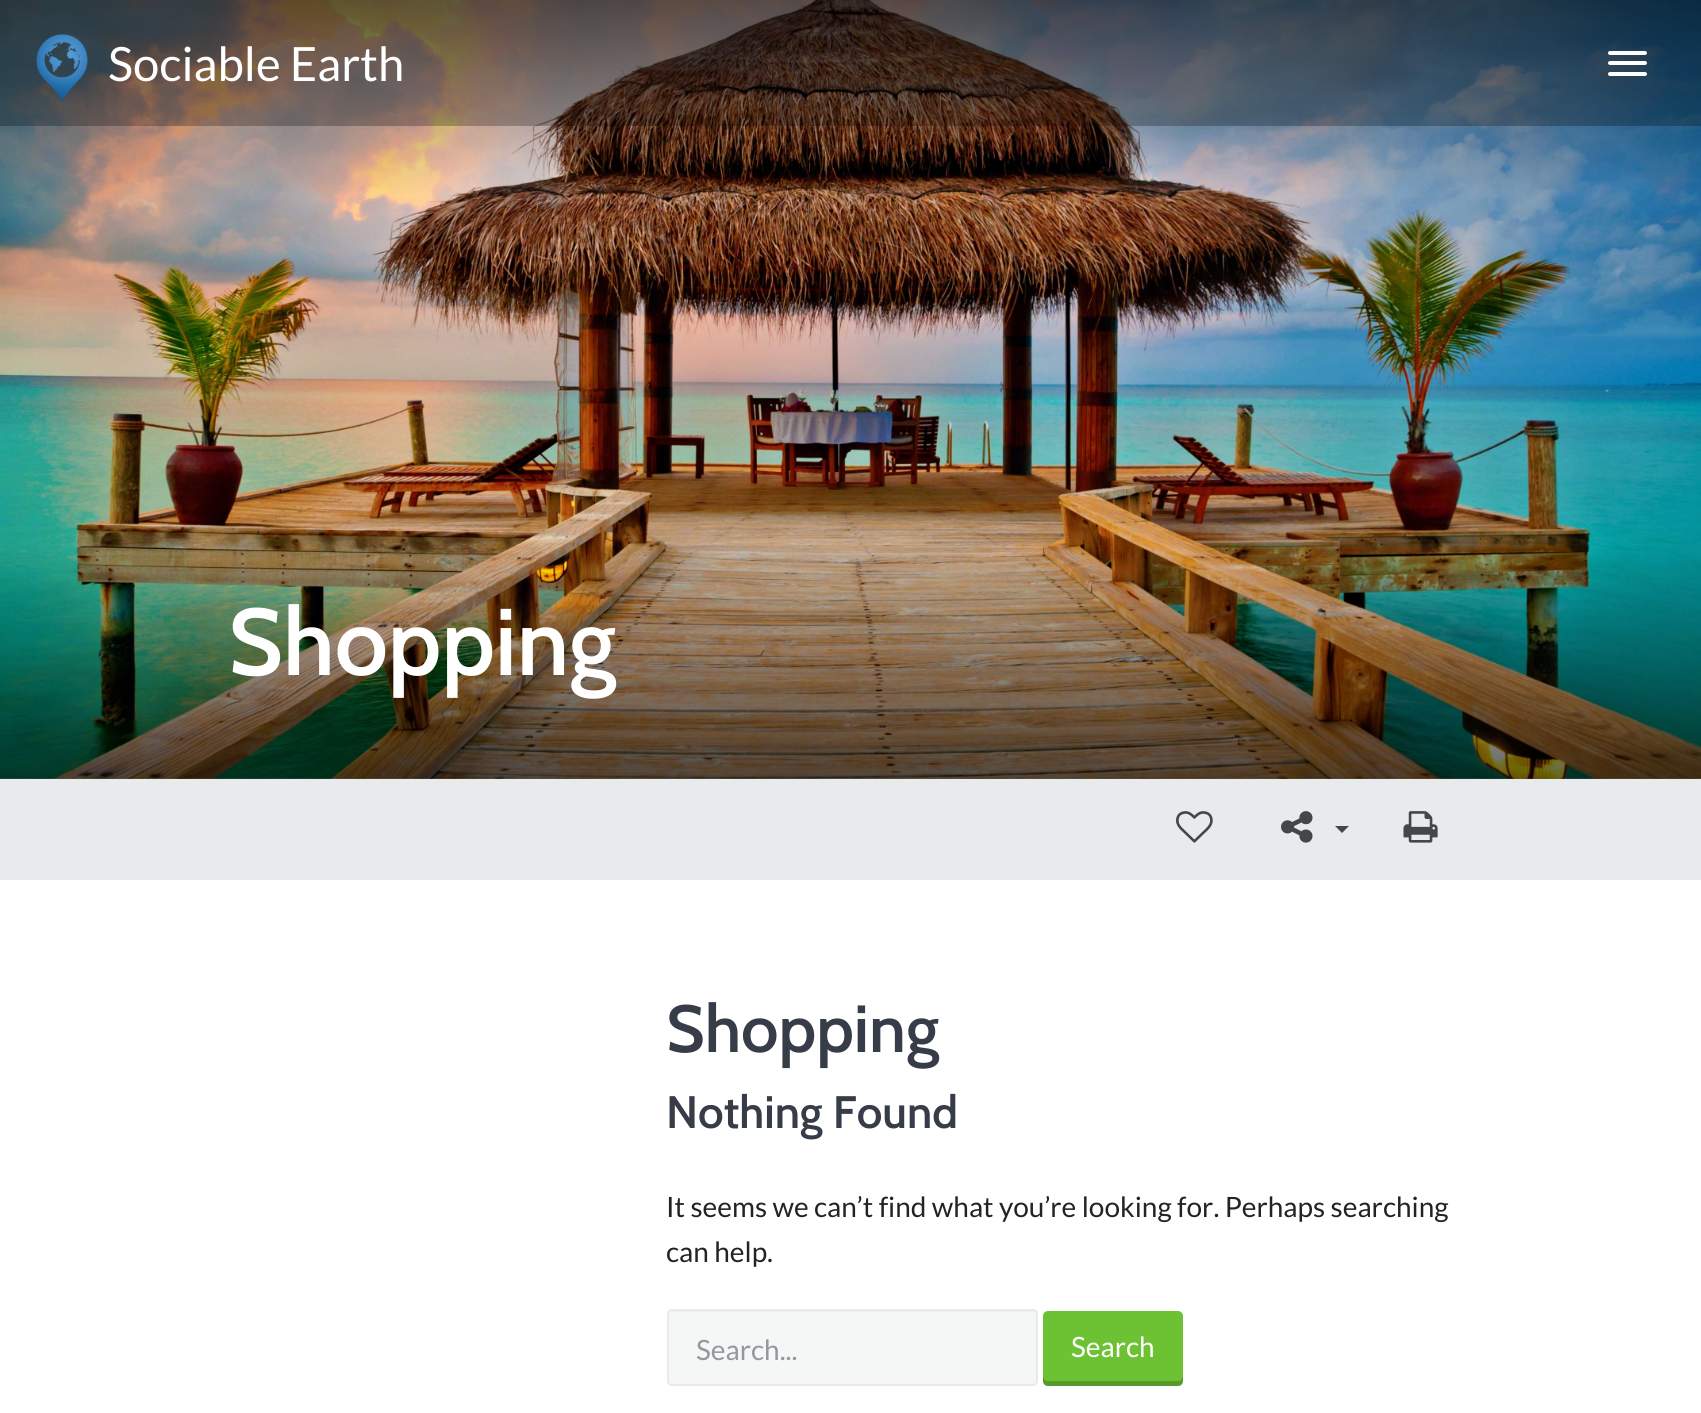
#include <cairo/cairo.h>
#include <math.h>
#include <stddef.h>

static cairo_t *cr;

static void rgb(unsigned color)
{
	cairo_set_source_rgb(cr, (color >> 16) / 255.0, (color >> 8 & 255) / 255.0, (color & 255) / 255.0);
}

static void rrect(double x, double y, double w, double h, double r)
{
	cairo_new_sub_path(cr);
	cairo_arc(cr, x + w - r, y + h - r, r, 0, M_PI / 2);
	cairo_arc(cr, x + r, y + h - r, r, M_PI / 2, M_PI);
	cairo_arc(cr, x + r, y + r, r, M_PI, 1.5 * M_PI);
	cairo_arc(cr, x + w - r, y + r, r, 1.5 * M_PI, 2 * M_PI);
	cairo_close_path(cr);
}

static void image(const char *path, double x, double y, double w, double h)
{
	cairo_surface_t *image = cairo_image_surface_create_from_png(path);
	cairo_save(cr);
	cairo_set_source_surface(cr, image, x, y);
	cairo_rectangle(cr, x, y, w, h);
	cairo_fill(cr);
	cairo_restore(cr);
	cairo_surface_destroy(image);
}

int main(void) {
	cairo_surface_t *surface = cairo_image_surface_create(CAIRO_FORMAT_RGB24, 1701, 1413);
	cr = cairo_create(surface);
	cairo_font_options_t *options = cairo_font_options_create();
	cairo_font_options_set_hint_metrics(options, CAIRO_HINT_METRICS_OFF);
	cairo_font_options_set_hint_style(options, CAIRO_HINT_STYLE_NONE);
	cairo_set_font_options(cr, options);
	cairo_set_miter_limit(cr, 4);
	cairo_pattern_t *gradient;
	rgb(0xffffff);
	cairo_paint(cr);
	image("img/2.png", 0, 0, 1701, 779);
	gradient = cairo_pattern_create_linear(851, 0, 851, 779);
	cairo_pattern_add_color_stop_rgba(gradient, 0, 0, 0, 0, 0.5);
	cairo_pattern_add_color_stop_rgba(gradient, 0.25, 0, 0, 0, 0);
	cairo_pattern_add_color_stop_rgba(gradient, 0.7, 0, 0, 0, 0);
	cairo_pattern_add_color_stop_rgba(gradient, 1, 0, 0, 0, 0.6);
	cairo_set_source(cr, gradient);
	cairo_pattern_destroy(gradient);
	cairo_rectangle(cr, 0, 0, 1701, 779);
	cairo_fill(cr);
	cairo_set_source_rgba(cr, 0, 0, 0, 0.26);
	cairo_rectangle(cr, 0, 0, 1701, 126);
	cairo_fill(cr);
	image("img/1.png", 36, 34, 52, 68);
	rgb(0xffffff);
	rrect(1608, 51, 39, 4, 2);
	cairo_fill(cr);
	rrect(1608, 61, 39, 4, 2);
	cairo_fill(cr);
	rrect(1608, 72, 39, 4, 2);
	cairo_fill(cr);
	rgb(0xe9eaeb);
	cairo_rectangle(cr, 0, 779, 1701, 101);
	cairo_fill(cr);
	image("img/3.png", 1176, 811, 37, 32);
	image("img/4.png", 1281, 811, 32, 32);
	rgb(0x444649);
	cairo_new_path(cr);
	cairo_move_to(cr, 1335, 826);
	cairo_line_to(cr, 1349, 826);
	cairo_line_to(cr, 1342, 833);
	cairo_close_path(cr);
	cairo_fill(cr);
	image("img/5.png", 1403, 811, 35, 32);
	rgb(0xf5f6f6);
	rrect(667, 1309, 371, 77, 5);
	cairo_fill(cr);
	rgb(0xeceded);
	cairo_new_path(cr);
	cairo_move_to(cr, 672, 1312);
	cairo_line_to(cr, 1032, 1312);
	cairo_curve_to(cr, 1034, 1312, 1036, 1314, 1036, 1316);
	cairo_line_to(cr, 1036, 1315);
	cairo_curve_to(cr, 1036, 1313, 1034, 1311, 1032, 1311);
	cairo_line_to(cr, 673, 1311);
	cairo_curve_to(cr, 672, 1311, 670, 1312, 670, 1313);
	cairo_close_path(cr);
	cairo_fill(cr);
	rrect(668, 1310, 369, 75, 4);
	rgb(0xe9eaeb);
	cairo_stroke(cr);
	rgb(0x6dc234);
	rrect(1043, 1311, 140, 75, 5);
	cairo_fill(cr);
	cairo_set_source_rgba(cr, 0, 0, 0, 0.2);
	cairo_new_path(cr);
	cairo_move_to(cr, 1043, 1376);
	cairo_line_to(cr, 1043, 1381);
	cairo_curve_to(cr, 1043, 1384, 1045, 1386, 1048, 1386);
	cairo_line_to(cr, 1178, 1386);
	cairo_curve_to(cr, 1181, 1386, 1183, 1384, 1183, 1381);
	cairo_line_to(cr, 1183, 1376);
	cairo_curve_to(cr, 1183, 1378, 1181, 1381, 1178, 1381);
	cairo_line_to(cr, 1048, 1381);
	cairo_curve_to(cr, 1045, 1381, 1043, 1378, 1043, 1376);
	cairo_close_path(cr);
	cairo_fill(cr);
	cairo_select_font_face(cr, "Lato", CAIRO_FONT_SLANT_NORMAL, CAIRO_FONT_WEIGHT_NORMAL);
	cairo_set_font_size(cr, 47.25);
	rgb(0xffffff);
	cairo_move_to(cr, 108, 81);
	cairo_show_text(cr, "Sociable Earth");
	cairo_select_font_face(cr, "Cabin SemiBold", CAIRO_FONT_SLANT_NORMAL, CAIRO_FONT_WEIGHT_NORMAL);
	cairo_set_font_size(cr, 94.5);
	cairo_move_to(cr, 228, 675);
	cairo_show_text(cr, "Shopping");
	cairo_set_font_size(cr, 66.5);
	rgb(0x363c48);
	cairo_move_to(cr, 666, 1052);
	cairo_show_text(cr, "Shopping");
	cairo_set_font_size(cr, 45.5);
	cairo_move_to(cr, 666, 1128);
	cairo_show_text(cr, "Nothing Found");
	cairo_select_font_face(cr, "Lato", CAIRO_FONT_SLANT_NORMAL, CAIRO_FONT_WEIGHT_NORMAL);
	cairo_set_font_size(cr, 28);
	rgb(0x222324);
	cairo_move_to(cr, 666, 1217);
	cairo_show_text(cr, "It seems we can’t find what you’re looking for. Perhaps searching");
	cairo_move_to(cr, 666, 1262);
	cairo_show_text(cr, "can help.");
	rgb(0x95979c);
	cairo_move_to(cr, 696, 1360);
	cairo_show_text(cr, "Search...");
	rgb(0xffffff);
	cairo_move_to(cr, 1071, 1357);
	cairo_show_text(cr, "Search");
	cairo_surface_write_to_png(surface, "page.png");
	cairo_font_options_destroy(options);
	cairo_destroy(cr);
	cairo_surface_destroy(surface);
	return 0;
}
